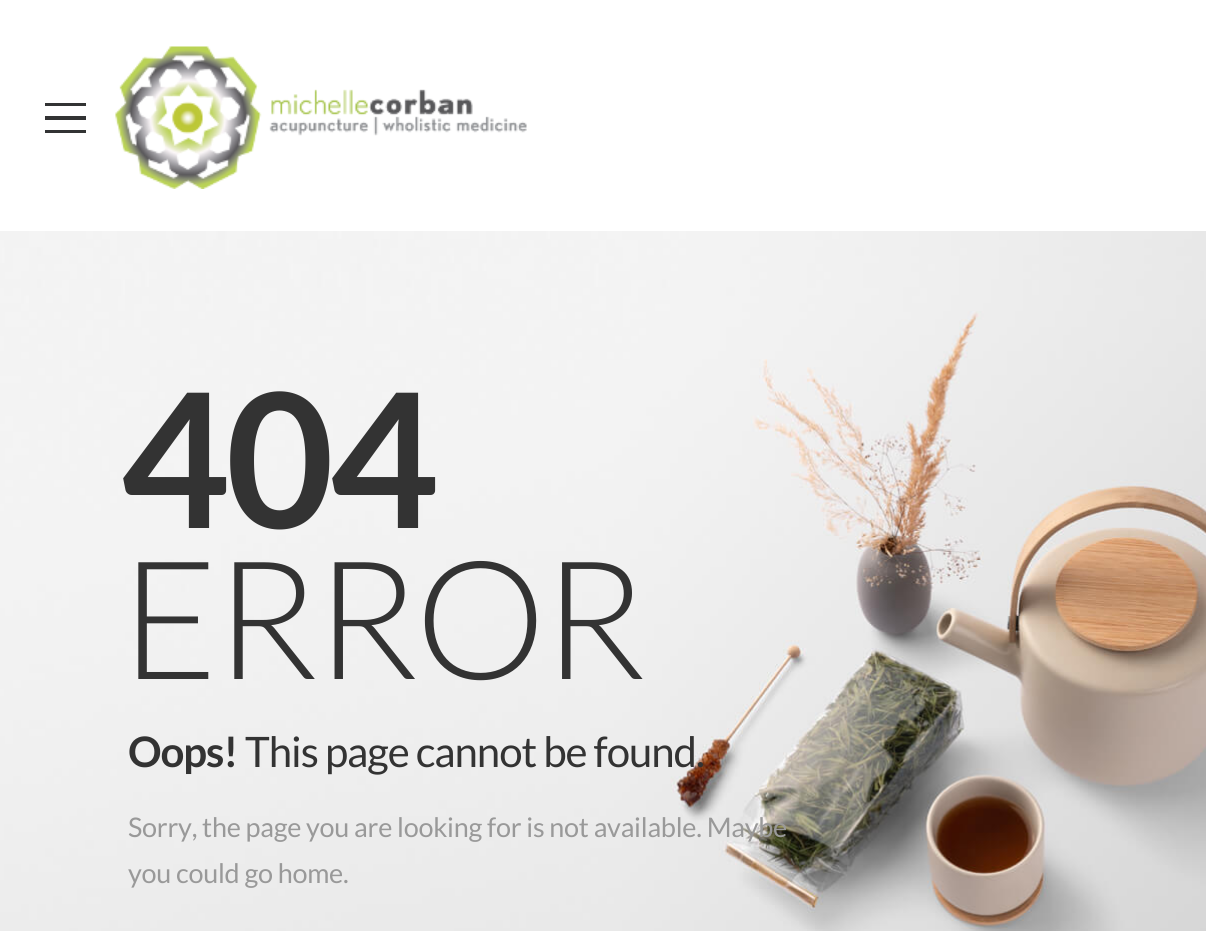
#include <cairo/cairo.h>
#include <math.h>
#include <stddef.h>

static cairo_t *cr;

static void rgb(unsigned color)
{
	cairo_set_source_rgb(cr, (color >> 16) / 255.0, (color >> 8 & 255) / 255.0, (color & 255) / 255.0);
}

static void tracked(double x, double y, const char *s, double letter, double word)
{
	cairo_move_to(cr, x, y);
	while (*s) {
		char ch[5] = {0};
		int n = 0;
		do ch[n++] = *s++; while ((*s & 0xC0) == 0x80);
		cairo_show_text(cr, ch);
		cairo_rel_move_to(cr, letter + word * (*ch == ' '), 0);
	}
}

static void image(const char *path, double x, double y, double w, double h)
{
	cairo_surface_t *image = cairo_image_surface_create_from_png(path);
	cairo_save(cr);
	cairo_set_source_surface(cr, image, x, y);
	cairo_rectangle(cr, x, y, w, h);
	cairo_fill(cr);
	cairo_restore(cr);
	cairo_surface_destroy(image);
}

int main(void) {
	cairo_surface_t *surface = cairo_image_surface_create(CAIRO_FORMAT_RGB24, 1206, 931);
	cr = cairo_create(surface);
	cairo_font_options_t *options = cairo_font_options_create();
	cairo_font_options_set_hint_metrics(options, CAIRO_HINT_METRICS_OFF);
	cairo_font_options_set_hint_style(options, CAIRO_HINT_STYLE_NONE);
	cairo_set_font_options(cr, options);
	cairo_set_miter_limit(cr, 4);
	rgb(0xffffff);
	cairo_paint(cr);
	rgb(0x323334);
	cairo_new_path(cr);
	cairo_move_to(cr, 45, 103);
	cairo_line_to(cr, 45, 106);
	cairo_line_to(cr, 86, 106);
	cairo_line_to(cr, 86, 103);
	cairo_close_path(cr);
	cairo_move_to(cr, 45, 116);
	cairo_line_to(cr, 45, 120);
	cairo_line_to(cr, 86, 120);
	cairo_line_to(cr, 86, 116);
	cairo_close_path(cr);
	cairo_move_to(cr, 45, 130);
	cairo_line_to(cr, 45, 133);
	cairo_line_to(cr, 86, 133);
	cairo_line_to(cr, 86, 130);
	cairo_close_path(cr);
	cairo_fill(cr);
	image("img/1.png", 115, 46, 412, 143);
	image("img/2.png", 0, 231, 1206, 700);
	cairo_select_font_face(cr, "Lato", CAIRO_FONT_SLANT_NORMAL, CAIRO_FONT_WEIGHT_BOLD);
	cairo_set_font_size(cr, 187);
	rgb(0x333333);
	tracked(121, 528, "404", -4, 0);
	cairo_select_font_face(cr, "Lato Light", CAIRO_FONT_SLANT_NORMAL, CAIRO_FONT_WEIGHT_NORMAL);
	cairo_set_font_size(cr, 165);
	tracked(121, 679, "ERROR", -4, 0);
	cairo_select_font_face(cr, "Lato", CAIRO_FONT_SLANT_NORMAL, CAIRO_FONT_WEIGHT_BOLD);
	cairo_set_font_size(cr, 42);
	tracked(128, 767, "Oops!", -1.05, 0);
	cairo_select_font_face(cr, "Lato", CAIRO_FONT_SLANT_NORMAL, CAIRO_FONT_WEIGHT_NORMAL);
	tracked(245, 767, "This page cannot be found.", -1.05, 0);
	cairo_set_font_size(cr, 27);
	rgb(0x999999);
	tracked(128, 837, "Sorry, the page you are looking for is not available. Maybe", -0.25, 0);
	tracked(128, 883, "you could go home.", -0.25, 0);
	cairo_surface_write_to_png(surface, "page.png");
	cairo_font_options_destroy(options);
	cairo_destroy(cr);
	cairo_surface_destroy(surface);
	return 0;
}
